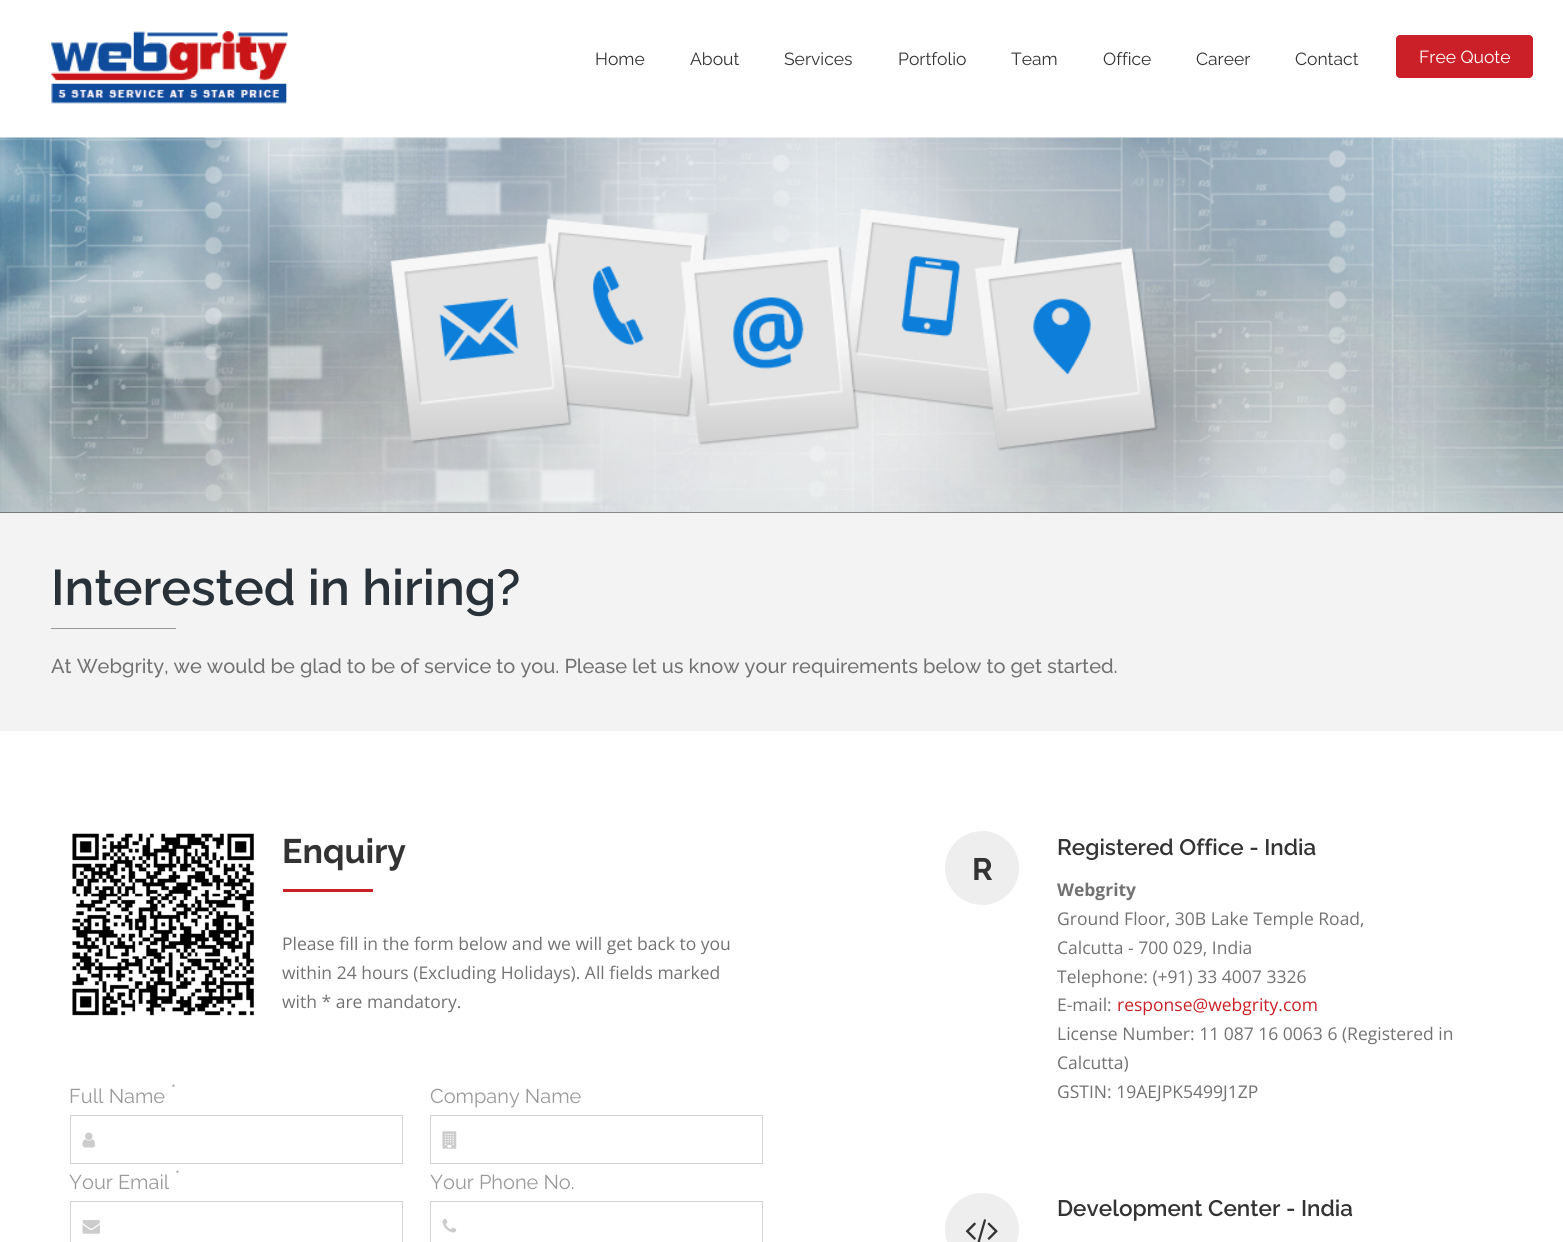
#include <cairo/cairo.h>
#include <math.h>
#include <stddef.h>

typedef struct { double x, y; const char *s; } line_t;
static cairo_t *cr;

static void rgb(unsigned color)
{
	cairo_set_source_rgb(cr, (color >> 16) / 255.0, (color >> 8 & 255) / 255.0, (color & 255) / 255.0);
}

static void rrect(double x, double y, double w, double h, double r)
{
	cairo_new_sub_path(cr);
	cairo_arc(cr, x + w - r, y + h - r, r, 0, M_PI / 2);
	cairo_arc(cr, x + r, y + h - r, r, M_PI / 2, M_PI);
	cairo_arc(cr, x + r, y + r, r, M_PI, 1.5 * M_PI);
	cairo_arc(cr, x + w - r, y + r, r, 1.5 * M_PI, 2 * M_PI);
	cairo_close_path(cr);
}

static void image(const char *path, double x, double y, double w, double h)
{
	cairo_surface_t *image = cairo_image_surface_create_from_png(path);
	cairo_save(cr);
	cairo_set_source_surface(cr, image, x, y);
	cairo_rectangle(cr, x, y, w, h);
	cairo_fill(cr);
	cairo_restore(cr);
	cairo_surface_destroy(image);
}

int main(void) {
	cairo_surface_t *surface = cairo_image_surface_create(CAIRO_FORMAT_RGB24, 1563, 1242);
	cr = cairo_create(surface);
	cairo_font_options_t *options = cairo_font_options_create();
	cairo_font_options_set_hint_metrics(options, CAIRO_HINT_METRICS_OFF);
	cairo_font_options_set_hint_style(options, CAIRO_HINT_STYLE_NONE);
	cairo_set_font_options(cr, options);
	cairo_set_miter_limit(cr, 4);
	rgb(0xffffff);
	cairo_paint(cr);
	image("img/1.png", 51, 31, 237, 73);
	rgb(0xcb2027);
	rrect(1396, 35, 137, 43, 4);
	cairo_fill(cr);
	rgb(0x333333);
	cairo_rectangle(cr, 0, 512, 1563, 1);
	cairo_fill(cr);
	image("img/2.png", 0, 137, 1563, 376);
	rgb(0xf3f3f3);
	cairo_rectangle(cr, 0, 513, 1563, 218);
	cairo_fill(cr);
	rgb(0x999999);
	cairo_rectangle(cr, 51, 628, 125, 1);
	cairo_fill(cr);
	image("img/3.png", 72, 833, 182, 183);
	rgb(0xcb2027);
	cairo_rectangle(cr, 283, 889, 90, 3);
	cairo_fill(cr);
	cairo_rectangle(cr, 70.5, 1115.5, 332, 48);
	rgb(0xd3d3d3);
	cairo_set_line_width(cr, 1);
	cairo_stroke(cr);
	image("img/4.png", 82, 1132, 13, 16);
	cairo_rectangle(cr, 430.5, 1115.5, 332, 48);
	cairo_stroke(cr);
	image("img/5.png", 442, 1131, 15, 18);
	cairo_rectangle(cr, 70.5, 1201.5, 332, 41);
	cairo_stroke(cr);
	image("img/6.png", 82, 1220, 18, 14);
	cairo_rectangle(cr, 430.5, 1201.5, 332, 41);
	cairo_stroke(cr);
	image("img/7.png", 442, 1218, 15, 15);
	rgb(0xeeeeee);
	cairo_arc(cr, 982, 868, 37, 0, 2 * M_PI);
	cairo_fill(cr);
	rrect(945, 1193, 74, 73, 36.5);
	cairo_fill(cr);
	image("img/8.png", 965, 1219, 33, 23);
	cairo_select_font_face(cr, "Raleway Thin", CAIRO_FONT_SLANT_NORMAL, CAIRO_FONT_WEIGHT_NORMAL);
	cairo_set_font_size(cr, 17.5);
	rgb(0x333333);
	{
		static const line_t items[] = {
			{595, 65, "Home"},
			{690, 65, "About"},
			{784, 65, "Services"},
			{898, 65, "Portfolio"},
			{1011, 65, "Team"},
			{1103, 65, "Office"},
			{1196, 65, "Career"},
			{1295, 65, "Contact"},
		};
		for (size_t i = 0; i < sizeof items / sizeof *items; i++) {
			cairo_move_to(cr, items[i].x, items[i].y);
			cairo_show_text(cr, items[i].s);
		}
	}
	rgb(0xffffff);
	cairo_move_to(cr, 1419, 63);
	cairo_show_text(cr, "Free Quote");
	cairo_select_font_face(cr, "Raleway SemiBold", CAIRO_FONT_SLANT_NORMAL, CAIRO_FONT_WEIGHT_NORMAL);
	cairo_set_font_size(cr, 50);
	rgb(0x293139);
	cairo_move_to(cr, 51, 605);
	cairo_show_text(cr, "Interested in hiring?");
	cairo_select_font_face(cr, "Raleway Medium", CAIRO_FONT_SLANT_NORMAL, CAIRO_FONT_WEIGHT_NORMAL);
	cairo_set_font_size(cr, 20);
	rgb(0x727272);
	cairo_move_to(cr, 51, 673);
	cairo_show_text(cr, "At Webgrity, we would be glad to be of service to you. Please let us know your requirements below to get started.");
	cairo_select_font_face(cr, "Raleway", CAIRO_FONT_SLANT_NORMAL, CAIRO_FONT_WEIGHT_BOLD);
	cairo_set_font_size(cr, 34);
	rgb(0x333333);
	cairo_move_to(cr, 282, 863);
	cairo_show_text(cr, "Enquiry");
	cairo_select_font_face(cr, "Open Sans", CAIRO_FONT_SLANT_NORMAL, CAIRO_FONT_WEIGHT_NORMAL);
	cairo_set_font_size(cr, 17.5);
	rgb(0x727272);
	{
		static const line_t items[] = {
			{282, 950, "Please fill in the form below and we will get back to you"},
			{282, 979, "within 24 hours (Excluding Holidays). All fields marked"},
			{282, 1008, "with * are mandatory."},
		};
		for (size_t i = 0; i < sizeof items / sizeof *items; i++) {
			cairo_move_to(cr, items[i].x, items[i].y);
			cairo_show_text(cr, items[i].s);
		}
	}
	cairo_select_font_face(cr, "Raleway Thin", CAIRO_FONT_SLANT_NORMAL, CAIRO_FONT_WEIGHT_NORMAL);
	cairo_set_font_size(cr, 15);
	rgb(0x999999);
	cairo_move_to(cr, 171, 1095);
	cairo_show_text(cr, "*");
	cairo_set_font_size(cr, 20);
	cairo_move_to(cr, 69, 1103);
	cairo_show_text(cr, "Full Name");
	cairo_move_to(cr, 430, 1103);
	cairo_show_text(cr, "Company Name");
	cairo_set_font_size(cr, 15);
	cairo_move_to(cr, 175, 1181);
	cairo_show_text(cr, "*");
	cairo_set_font_size(cr, 20);
	cairo_move_to(cr, 69, 1189);
	cairo_show_text(cr, "Your Email");
	cairo_move_to(cr, 430, 1189);
	cairo_show_text(cr, "Your Phone No.");
	cairo_select_font_face(cr, "Raleway", CAIRO_FONT_SLANT_NORMAL, CAIRO_FONT_WEIGHT_BOLD);
	cairo_set_font_size(cr, 31);
	rgb(0x333333);
	cairo_move_to(cr, 972, 880);
	cairo_show_text(cr, "R");
	cairo_select_font_face(cr, "Raleway SemiBold", CAIRO_FONT_SLANT_NORMAL, CAIRO_FONT_WEIGHT_NORMAL);
	cairo_set_font_size(cr, 22.5);
	cairo_move_to(cr, 1057, 855);
	cairo_show_text(cr, "Registered Office - India");
	cairo_select_font_face(cr, "Open Sans", CAIRO_FONT_SLANT_NORMAL, CAIRO_FONT_WEIGHT_BOLD);
	cairo_set_font_size(cr, 17.5);
	rgb(0x727272);
	cairo_move_to(cr, 1057, 896);
	cairo_show_text(cr, "Webgrity");
	cairo_select_font_face(cr, "Open Sans", CAIRO_FONT_SLANT_NORMAL, CAIRO_FONT_WEIGHT_NORMAL);
	{
		static const line_t items[] = {
			{1057, 925, "Ground Floor, 30B Lake Temple Road,"},
			{1057, 954, "Calcutta - 700 029, India"},
			{1057, 983, "Telephone: (+91) 33 4007 3326"},
			{1057, 1011, "E-mail:"},
		};
		for (size_t i = 0; i < sizeof items / sizeof *items; i++) {
			cairo_move_to(cr, items[i].x, items[i].y);
			cairo_show_text(cr, items[i].s);
		}
	}
	rgb(0xcb2027);
	cairo_move_to(cr, 1117, 1011);
	cairo_show_text(cr, "response@webgrity.com");
	rgb(0x727272);
	{
		static const line_t items[] = {
			{1057, 1040, "License Number: 11 087 16 0063 6 (Registered in"},
			{1057, 1069, "Calcutta)"},
			{1057, 1098, "GSTIN: 19AEJPK5499J1ZP"},
		};
		for (size_t i = 0; i < sizeof items / sizeof *items; i++) {
			cairo_move_to(cr, items[i].x, items[i].y);
			cairo_show_text(cr, items[i].s);
		}
	}
	cairo_select_font_face(cr, "Raleway SemiBold", CAIRO_FONT_SLANT_NORMAL, CAIRO_FONT_WEIGHT_NORMAL);
	cairo_set_font_size(cr, 22.5);
	rgb(0x333333);
	cairo_move_to(cr, 1057, 1216);
	cairo_show_text(cr, "Development Center - India");
	cairo_surface_write_to_png(surface, "page.png");
	cairo_font_options_destroy(options);
	cairo_destroy(cr);
	cairo_surface_destroy(surface);
	return 0;
}
